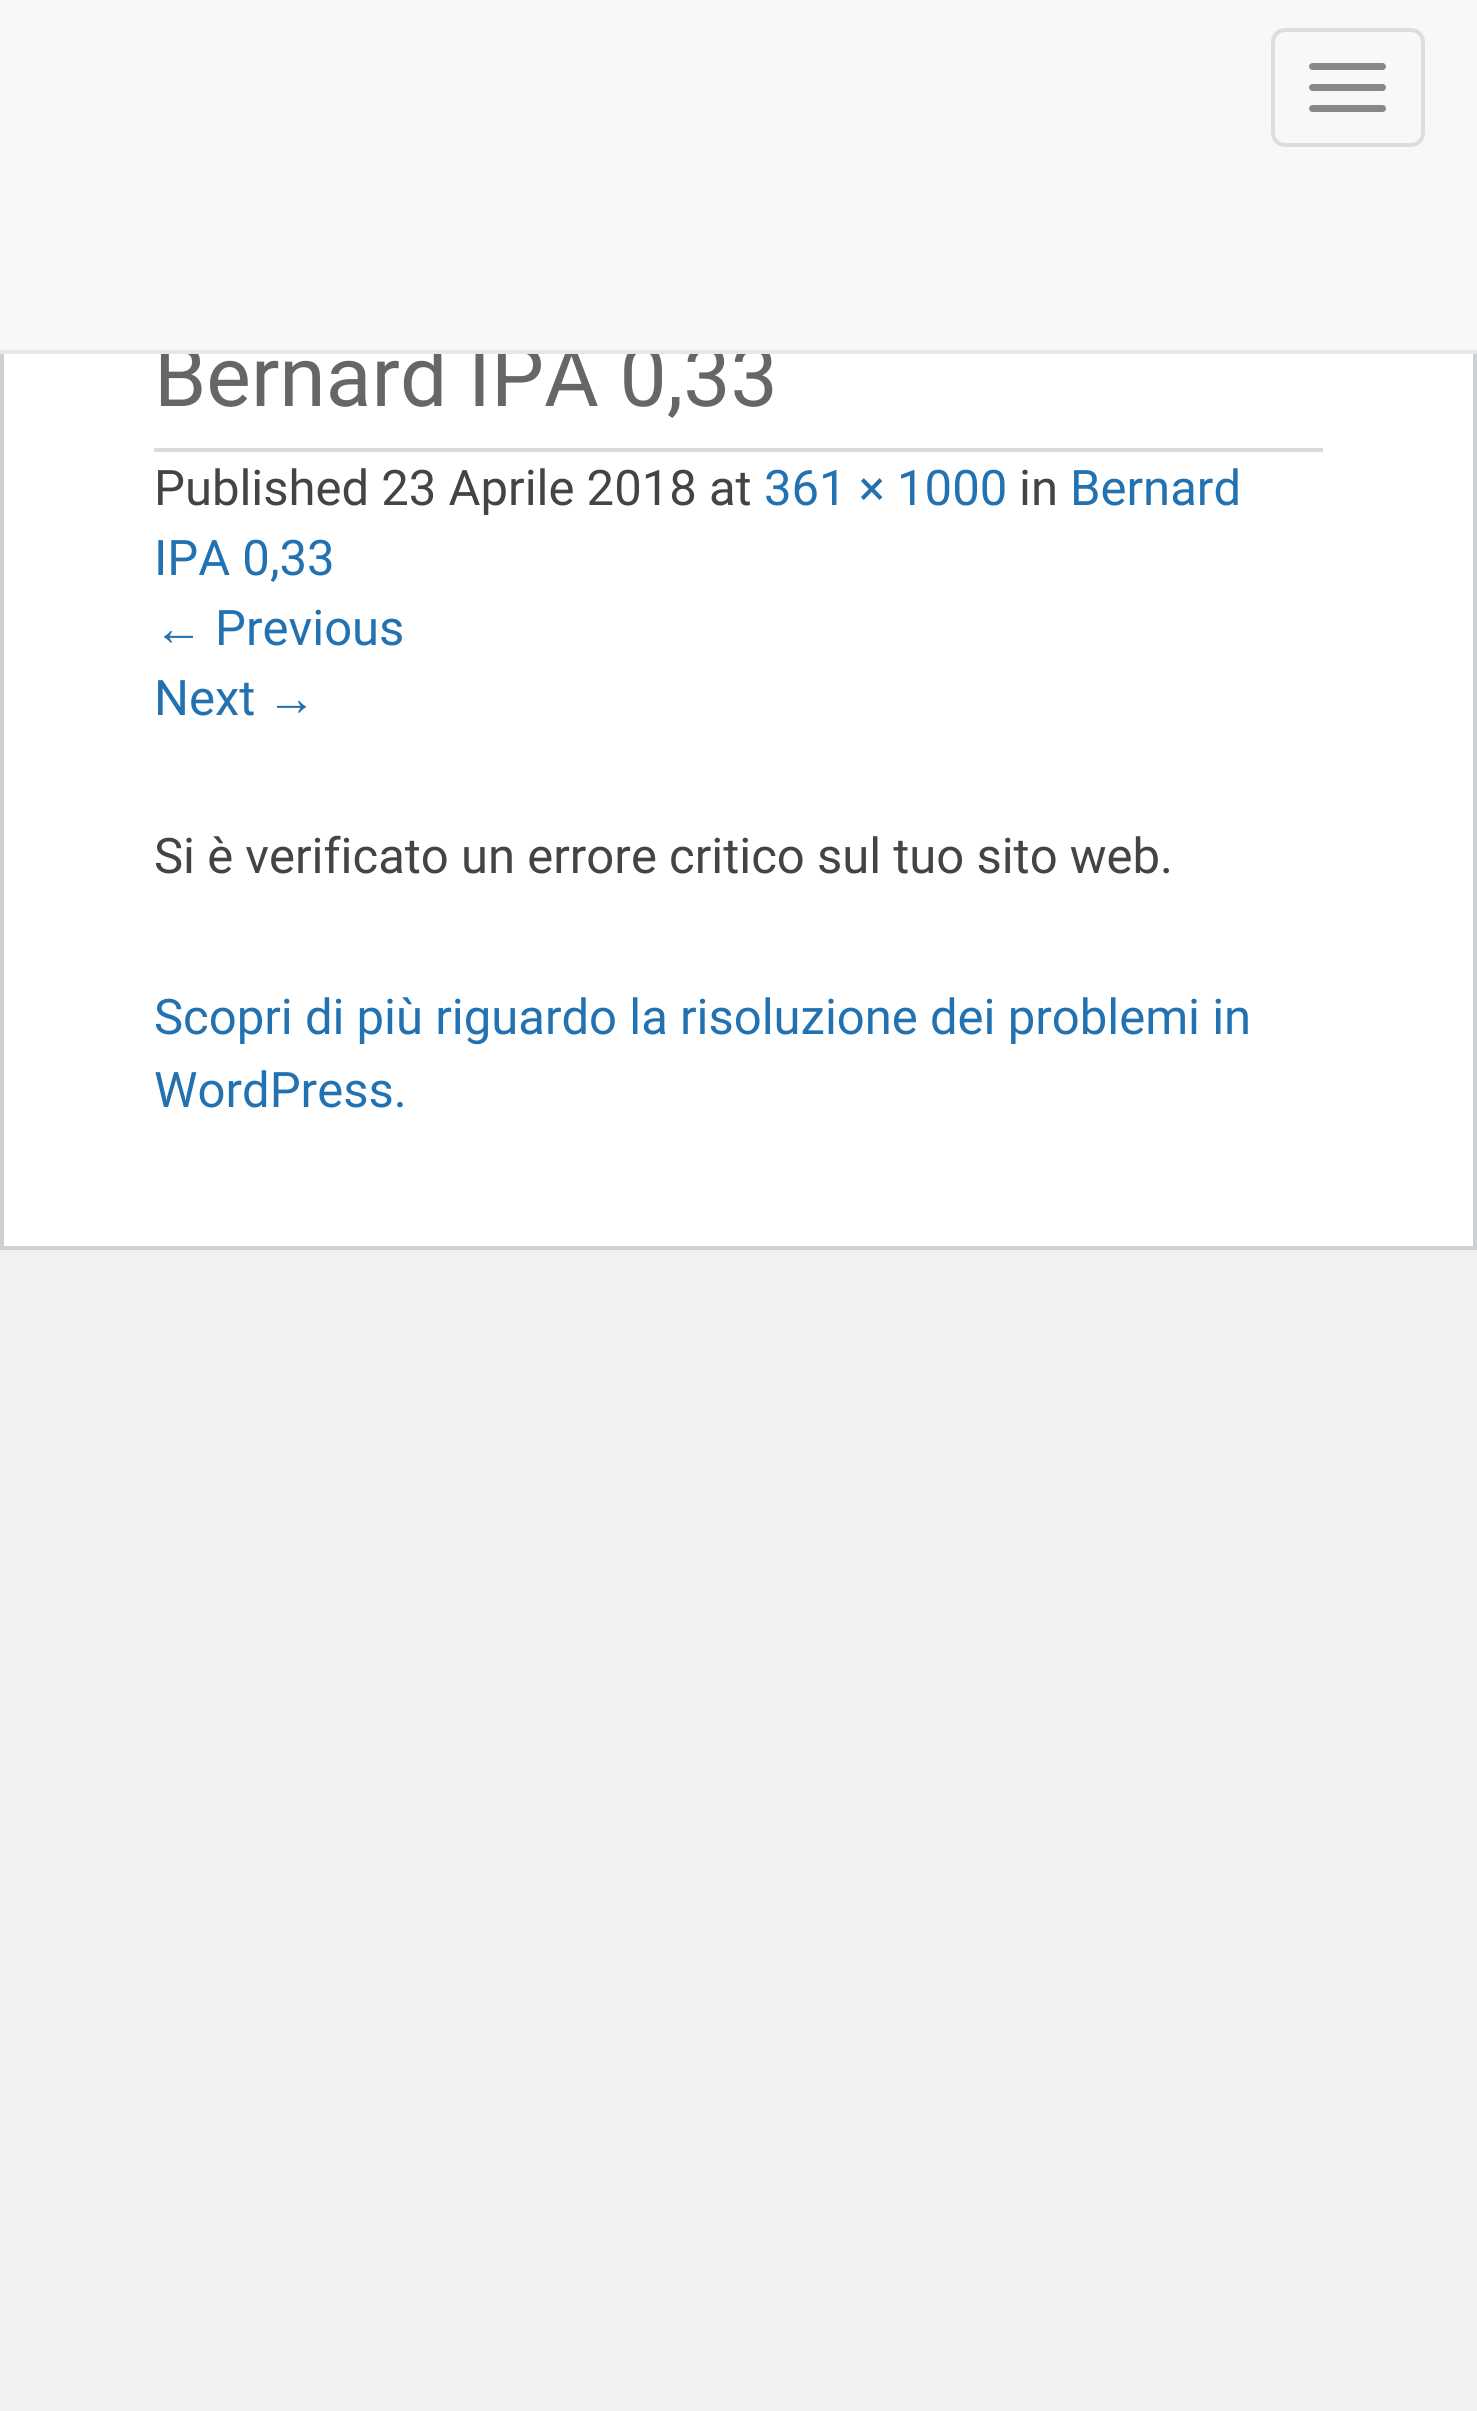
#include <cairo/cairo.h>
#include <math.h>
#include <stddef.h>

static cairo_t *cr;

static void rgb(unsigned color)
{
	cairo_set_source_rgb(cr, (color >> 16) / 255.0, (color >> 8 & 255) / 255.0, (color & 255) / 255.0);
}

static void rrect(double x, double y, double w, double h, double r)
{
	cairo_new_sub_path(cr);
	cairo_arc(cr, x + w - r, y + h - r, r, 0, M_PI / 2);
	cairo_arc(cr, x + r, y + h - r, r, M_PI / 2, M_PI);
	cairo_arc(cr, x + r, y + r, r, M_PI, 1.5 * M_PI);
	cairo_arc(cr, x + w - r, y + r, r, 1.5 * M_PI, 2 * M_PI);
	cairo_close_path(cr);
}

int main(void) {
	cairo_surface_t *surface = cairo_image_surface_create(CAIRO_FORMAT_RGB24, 1477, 2411);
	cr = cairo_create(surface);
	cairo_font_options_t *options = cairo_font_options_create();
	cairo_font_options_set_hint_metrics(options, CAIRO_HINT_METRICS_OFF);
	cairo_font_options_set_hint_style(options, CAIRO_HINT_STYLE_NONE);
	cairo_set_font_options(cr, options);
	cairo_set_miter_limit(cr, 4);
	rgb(0xf1f1f1);
	cairo_paint(cr);
	rgb(0xffffff);
	cairo_rectangle(cr, 4, 354, 1469, 892);
	cairo_fill(cr);
	cairo_rectangle(cr, 2, 177, 1473, 1071);
	rgb(0xccd0d4);
	cairo_set_line_width(cr, 4);
	cairo_stroke(cr);
	rgb(0xdadada);
	cairo_rectangle(cr, 154, 448, 1169, 4);
	cairo_fill(cr);
	cairo_select_font_face(cr, "Roboto", CAIRO_FONT_SLANT_NORMAL, CAIRO_FONT_WEIGHT_NORMAL);
	cairo_set_font_size(cr, 84);
	rgb(0x666666);
	cairo_move_to(cr, 154, 406);
	cairo_show_text(cr, "Bernard IPA 0,33");
	rgb(0xf8f8f8);
	cairo_rectangle(cr, 0, 0, 1477, 350);
	cairo_fill(cr);
	rrect(1273, 30, 150, 115, 12);
	rgb(0xdddddd);
	cairo_stroke(cr);
	rgb(0x888888);
	rrect(1309, 105, 77, 7, 3.5);
	cairo_fill(cr);
	rrect(1309, 84, 77, 7, 3.5);
	cairo_fill(cr);
	rrect(1309, 63, 77, 7, 3.5);
	cairo_fill(cr);
	rgb(0xe7e7e7);
	cairo_rectangle(cr, 0, 350, 1477, 4);
	cairo_fill(cr);
	cairo_set_font_size(cr, 49);
	rgb(0x444444);
	cairo_move_to(cr, 154, 505);
	cairo_show_text(cr, "Published 23 Aprile 2018 at");
	rgb(0x2271b1);
	cairo_move_to(cr, 764, 505);
	cairo_show_text(cr, "361 × 1000");
	rgb(0x444444);
	cairo_move_to(cr, 1019, 505);
	cairo_show_text(cr, "in");
	rgb(0x2271b1);
	cairo_move_to(cr, 1070, 505);
	cairo_show_text(cr, "Bernard");
	cairo_move_to(cr, 154, 575);
	cairo_show_text(cr, "IPA 0,33");
	cairo_select_font_face(cr, "Liberation Sans", CAIRO_FONT_SLANT_NORMAL, CAIRO_FONT_WEIGHT_NORMAL);
	cairo_move_to(cr, 154, 645);
	cairo_show_text(cr, "←");
	cairo_select_font_face(cr, "Roboto", CAIRO_FONT_SLANT_NORMAL, CAIRO_FONT_WEIGHT_NORMAL);
	cairo_move_to(cr, 215, 645);
	cairo_show_text(cr, "Previous");
	cairo_move_to(cr, 154, 715);
	cairo_show_text(cr, "Next");
	cairo_select_font_face(cr, "Liberation Sans", CAIRO_FONT_SLANT_NORMAL, CAIRO_FONT_WEIGHT_NORMAL);
	cairo_move_to(cr, 267, 715);
	cairo_show_text(cr, "→");
	cairo_select_font_face(cr, "Roboto", CAIRO_FONT_SLANT_NORMAL, CAIRO_FONT_WEIGHT_NORMAL);
	rgb(0x444444);
	cairo_move_to(cr, 154, 873);
	cairo_show_text(cr, "Si è verificato un errore critico sul tuo sito web.");
	rgb(0x2271b1);
	cairo_move_to(cr, 154, 1034);
	cairo_show_text(cr, "Scopri di più riguardo la risoluzione dei problemi in");
	cairo_move_to(cr, 154, 1107);
	cairo_show_text(cr, "WordPress.");
	cairo_surface_write_to_png(surface, "page.png");
	cairo_font_options_destroy(options);
	cairo_destroy(cr);
	cairo_surface_destroy(surface);
	return 0;
}
